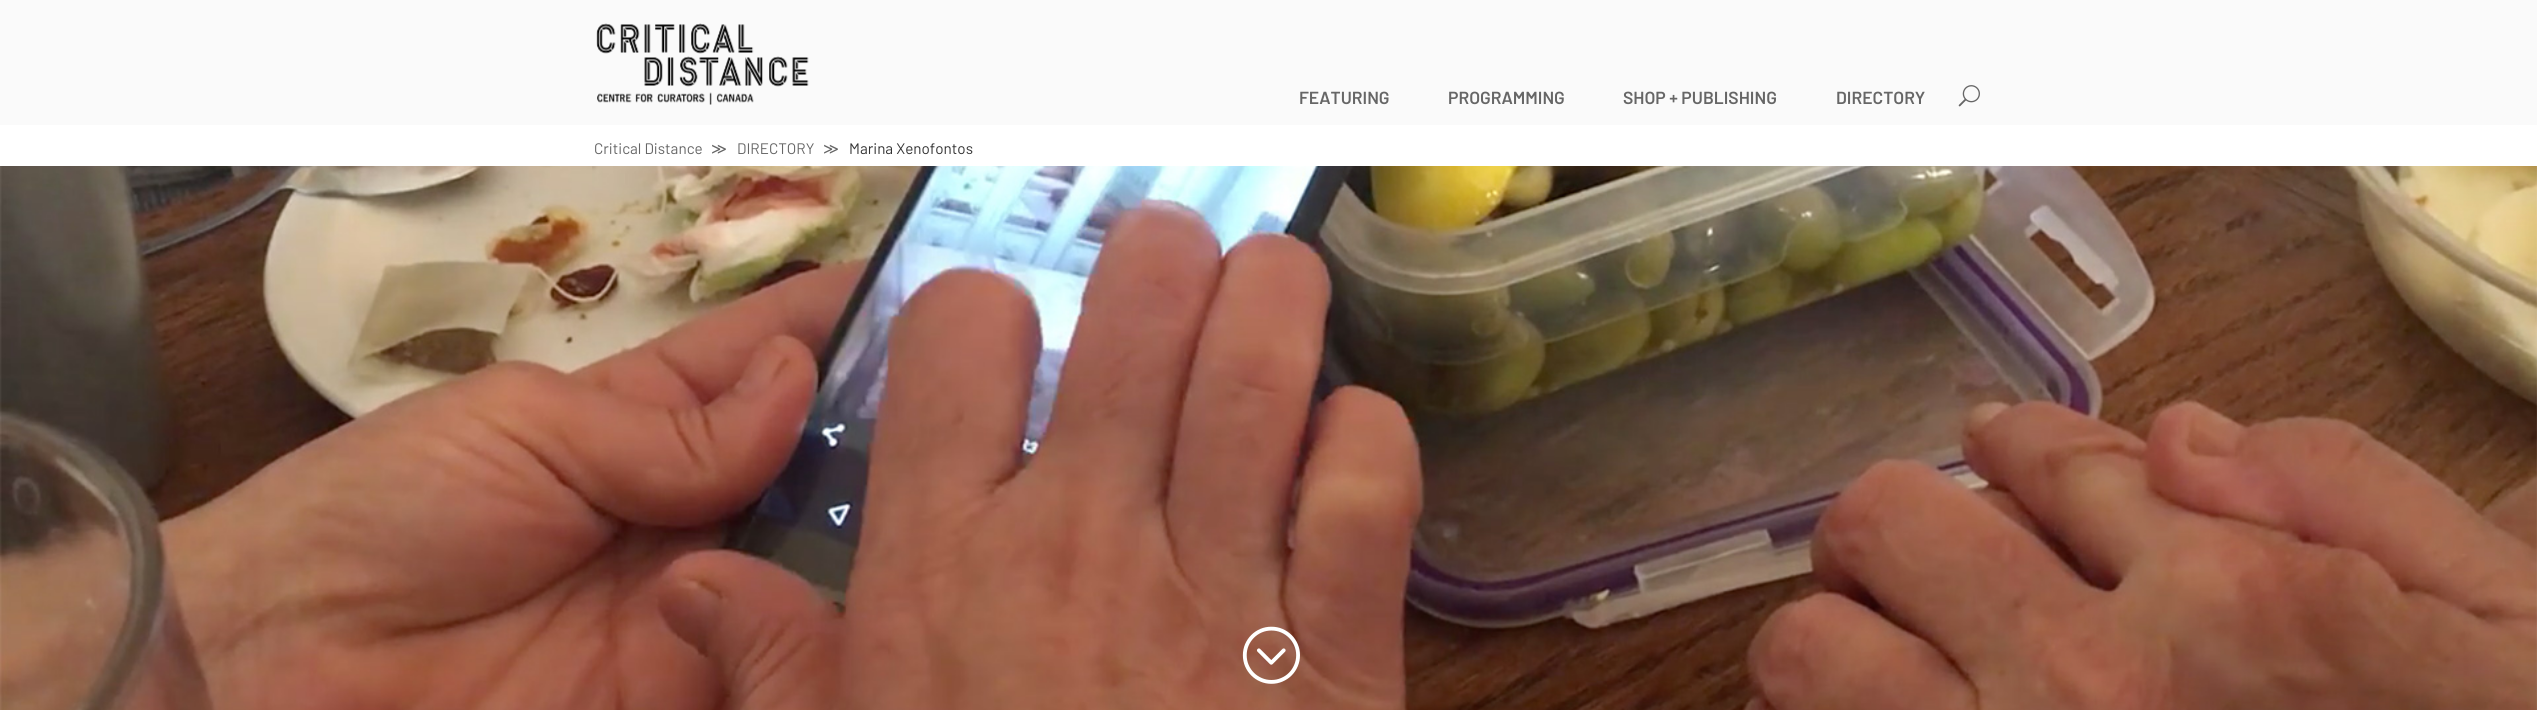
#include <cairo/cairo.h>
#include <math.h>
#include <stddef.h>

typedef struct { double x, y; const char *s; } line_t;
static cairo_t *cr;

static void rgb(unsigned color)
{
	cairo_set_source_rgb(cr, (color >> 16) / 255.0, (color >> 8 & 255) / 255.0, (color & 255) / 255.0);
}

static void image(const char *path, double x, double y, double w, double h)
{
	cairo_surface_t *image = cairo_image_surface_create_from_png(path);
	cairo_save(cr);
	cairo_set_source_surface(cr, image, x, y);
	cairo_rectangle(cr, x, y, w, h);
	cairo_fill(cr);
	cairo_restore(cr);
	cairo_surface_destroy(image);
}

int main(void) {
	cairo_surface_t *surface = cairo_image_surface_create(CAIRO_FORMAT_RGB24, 2537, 710);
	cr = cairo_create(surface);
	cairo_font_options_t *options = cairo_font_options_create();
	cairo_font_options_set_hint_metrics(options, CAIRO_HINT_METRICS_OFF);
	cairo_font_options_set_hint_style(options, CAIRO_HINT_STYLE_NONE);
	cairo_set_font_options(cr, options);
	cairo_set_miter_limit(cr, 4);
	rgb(0xffffff);
	cairo_paint(cr);
	rgb(0xfafafa);
	cairo_rectangle(cr, 0, 0, 2537, 125);
	cairo_fill(cr);
	image("img/1.png", 596, 23, 213, 82);
	image("img/2.png", 1958, 85, 22, 22);
	image("img/3.png", 0, 166, 2537, 544);
	image("img/4.png", 1242, 626, 58, 58);
	cairo_select_font_face(cr, "Barlow SemiBold", CAIRO_FONT_SLANT_NORMAL, CAIRO_FONT_WEIGHT_NORMAL);
	cairo_set_font_size(cr, 17.5);
	rgb(0x666666);
	{
		static const line_t items[] = {
			{1299, 104, "FEATURING"},
			{1448, 104, "PROGRAMMING"},
			{1623, 104, "SHOP + PUBLISHING"},
			{1836, 104, "DIRECTORY"},
		};
		for (size_t i = 0; i < sizeof items / sizeof *items; i++) {
			cairo_move_to(cr, items[i].x, items[i].y);
			cairo_show_text(cr, items[i].s);
		}
	}
	cairo_select_font_face(cr, "Barlow", CAIRO_FONT_SLANT_NORMAL, CAIRO_FONT_WEIGHT_NORMAL);
	cairo_set_font_size(cr, 15.25);
	cairo_move_to(cr, 594, 154);
	cairo_show_text(cr, "Critical Distance");
	cairo_select_font_face(cr, "DejaVu Sans", CAIRO_FONT_SLANT_NORMAL, CAIRO_FONT_WEIGHT_NORMAL);
	cairo_move_to(cr, 711, 154);
	cairo_show_text(cr, "≫");
	cairo_select_font_face(cr, "Barlow", CAIRO_FONT_SLANT_NORMAL, CAIRO_FONT_WEIGHT_NORMAL);
	cairo_move_to(cr, 737, 154);
	cairo_show_text(cr, "DIRECTORY");
	cairo_select_font_face(cr, "DejaVu Sans", CAIRO_FONT_SLANT_NORMAL, CAIRO_FONT_WEIGHT_NORMAL);
	cairo_move_to(cr, 823, 154);
	cairo_show_text(cr, "≫");
	cairo_select_font_face(cr, "Barlow", CAIRO_FONT_SLANT_NORMAL, CAIRO_FONT_WEIGHT_NORMAL);
	rgb(0x333333);
	cairo_move_to(cr, 849, 154);
	cairo_show_text(cr, "Marina Xenofontos");
	cairo_surface_write_to_png(surface, "page.png");
	cairo_font_options_destroy(options);
	cairo_destroy(cr);
	cairo_surface_destroy(surface);
	return 0;
}
